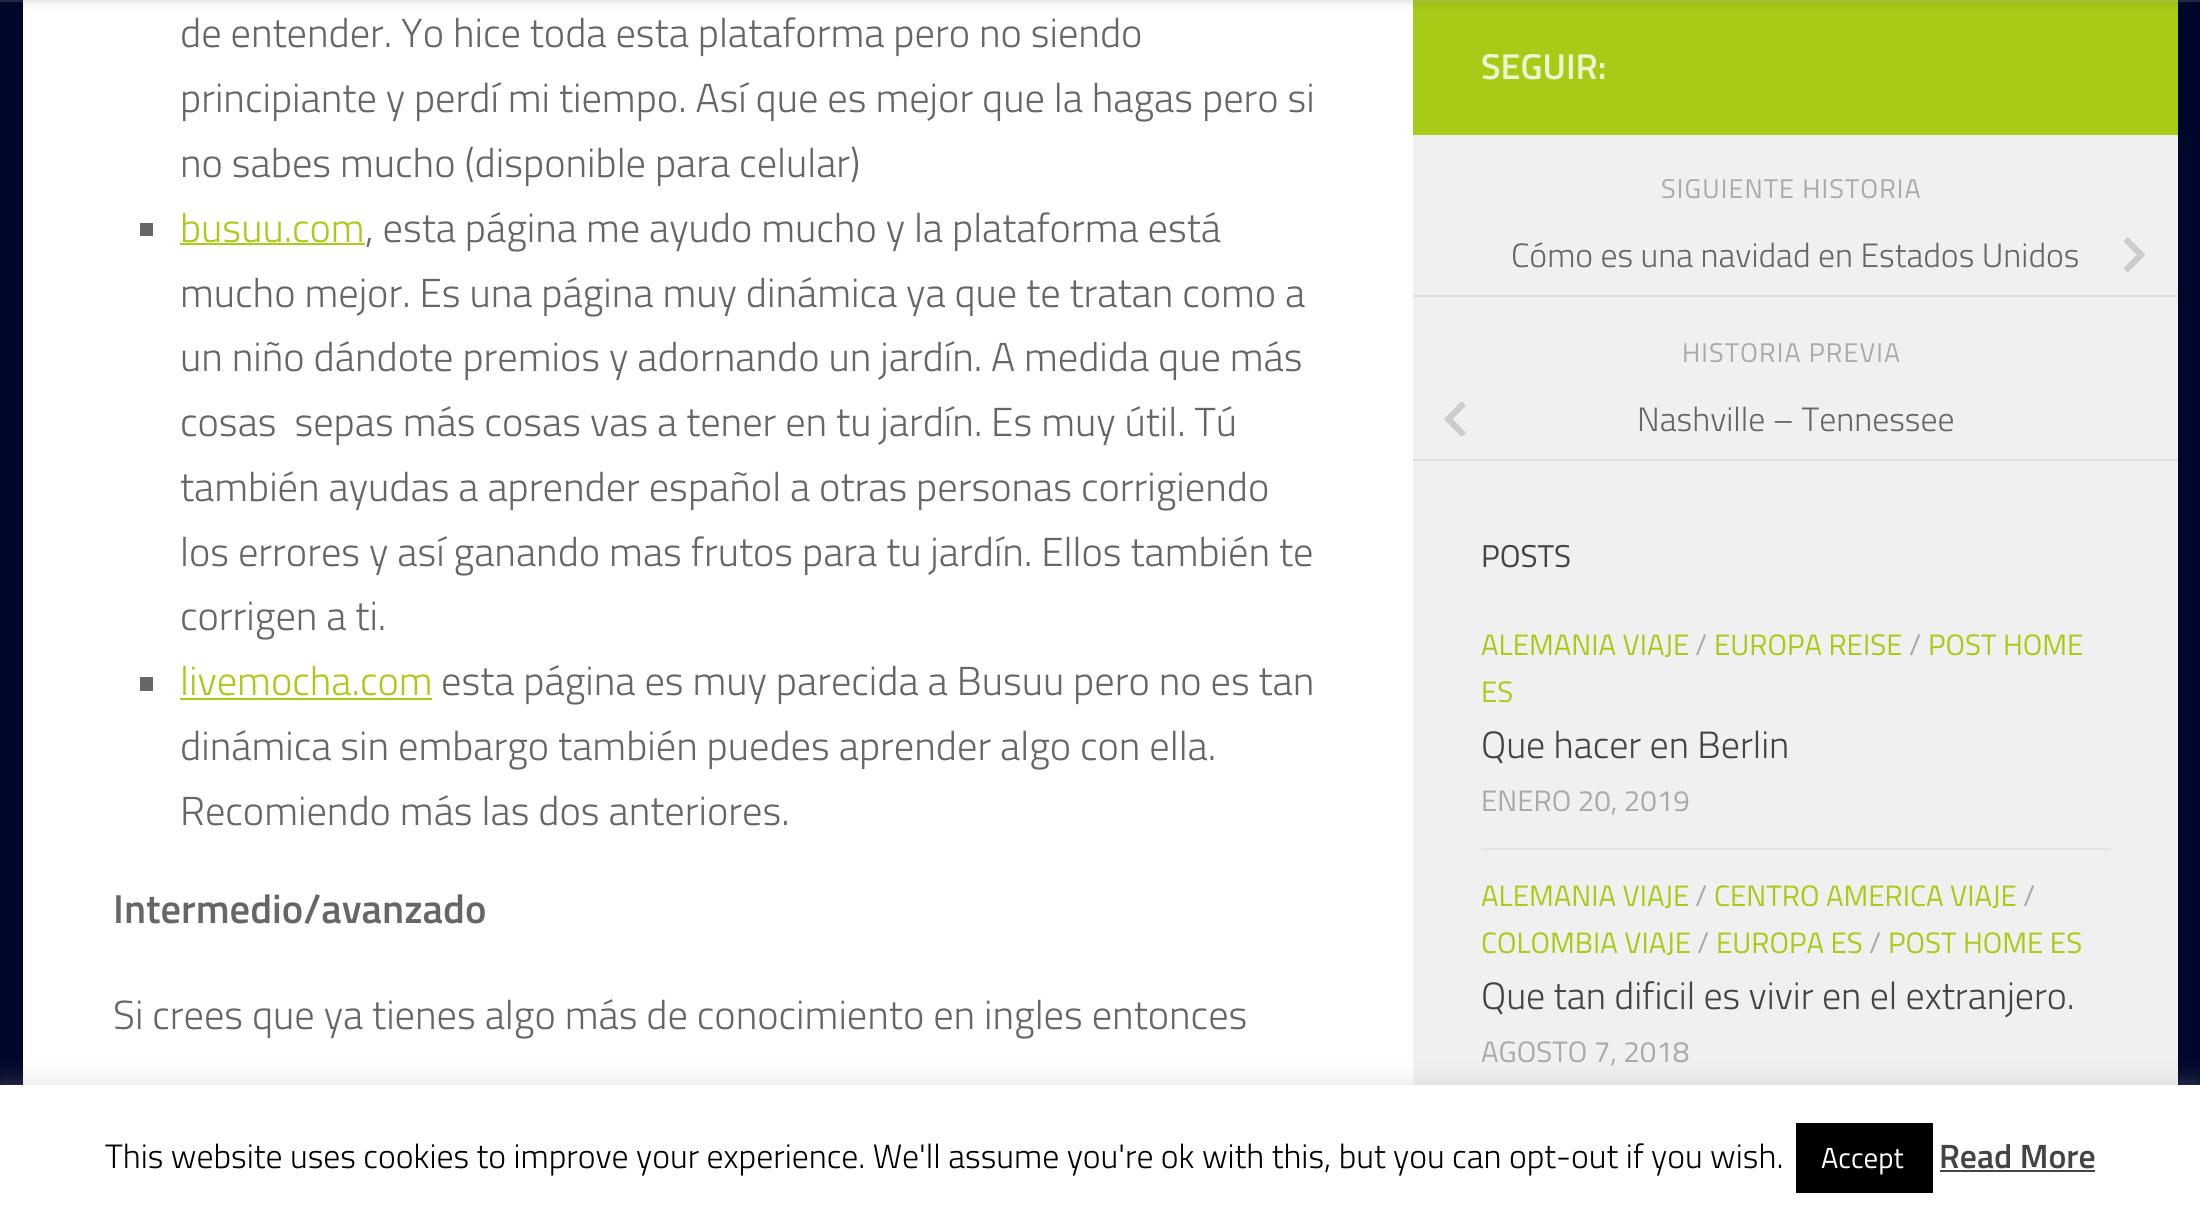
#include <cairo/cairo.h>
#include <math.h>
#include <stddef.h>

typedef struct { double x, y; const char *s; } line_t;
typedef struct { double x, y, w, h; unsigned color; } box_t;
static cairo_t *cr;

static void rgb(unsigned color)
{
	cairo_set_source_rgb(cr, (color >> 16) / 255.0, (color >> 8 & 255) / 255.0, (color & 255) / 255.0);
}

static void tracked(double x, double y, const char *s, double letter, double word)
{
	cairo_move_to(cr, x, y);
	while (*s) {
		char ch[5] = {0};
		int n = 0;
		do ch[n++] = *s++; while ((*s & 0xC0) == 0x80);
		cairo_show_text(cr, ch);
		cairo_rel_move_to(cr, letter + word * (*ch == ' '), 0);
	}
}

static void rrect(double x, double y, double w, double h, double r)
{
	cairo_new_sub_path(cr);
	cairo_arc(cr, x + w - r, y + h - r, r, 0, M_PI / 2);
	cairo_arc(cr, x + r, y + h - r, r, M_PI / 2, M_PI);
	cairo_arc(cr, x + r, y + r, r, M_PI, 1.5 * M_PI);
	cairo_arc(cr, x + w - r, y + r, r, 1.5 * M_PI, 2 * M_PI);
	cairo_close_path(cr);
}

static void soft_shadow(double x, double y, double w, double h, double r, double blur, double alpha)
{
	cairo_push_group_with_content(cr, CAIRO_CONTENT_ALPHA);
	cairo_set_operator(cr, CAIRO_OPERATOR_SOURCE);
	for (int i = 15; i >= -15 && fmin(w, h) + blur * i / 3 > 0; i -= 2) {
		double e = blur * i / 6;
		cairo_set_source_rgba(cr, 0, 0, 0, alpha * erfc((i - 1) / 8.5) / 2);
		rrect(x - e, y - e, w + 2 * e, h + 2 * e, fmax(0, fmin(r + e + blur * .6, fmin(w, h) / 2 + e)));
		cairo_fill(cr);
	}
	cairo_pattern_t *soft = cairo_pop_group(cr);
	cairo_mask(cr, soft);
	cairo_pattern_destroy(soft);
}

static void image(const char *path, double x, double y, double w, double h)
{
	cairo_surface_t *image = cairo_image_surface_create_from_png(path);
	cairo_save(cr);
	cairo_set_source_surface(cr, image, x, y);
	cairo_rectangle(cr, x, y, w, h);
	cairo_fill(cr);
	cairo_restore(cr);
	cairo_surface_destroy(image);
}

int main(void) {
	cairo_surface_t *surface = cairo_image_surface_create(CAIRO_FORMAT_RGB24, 2200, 1218);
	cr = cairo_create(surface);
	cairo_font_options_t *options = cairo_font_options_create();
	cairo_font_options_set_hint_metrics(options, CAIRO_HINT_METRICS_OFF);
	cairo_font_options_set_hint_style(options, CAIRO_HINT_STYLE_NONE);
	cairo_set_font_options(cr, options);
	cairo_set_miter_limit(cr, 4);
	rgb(0x00072b);
	cairo_paint(cr);
	rgb(0xffffff);
	cairo_rectangle(cr, 23, 0, 1390, 1085);
	cairo_fill(cr);
	rgb(0xa8cb17);
	cairo_rectangle(cr, 1413, 0, 765, 135);
	cairo_fill(cr);
	cairo_set_source_rgba(cr, 1, 1, 1, 0.15);
	cairo_new_path(cr);
	cairo_move_to(cr, 0, 0);
	cairo_line_to(cr, 0, 2);
	cairo_line_to(cr, 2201, 2);
	cairo_line_to(cr, 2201, -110);
	cairo_line_to(cr, 2200, -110);
	cairo_line_to(cr, 2200, 0);
	cairo_close_path(cr);
	cairo_fill(cr);
	rgb(0x000000);
	soft_shadow(0, -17, 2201, 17, 0, 5.5, 0.2);
	{
		static const box_t items[] = {
			{140, 223, 13, 13, 0x666666},
			{180, 243, 185, 2, 0xa8cb17},
			{140, 677, 13, 14, 0x666666},
			{180, 698, 252, 2, 0xa8cb17},
			{1413, 135, 765, 950, 0xf0f0f0},
			{1413, 295, 765, 2, 0xdddddd},
		};
		for (size_t i = 0; i < sizeof items / sizeof *items; i++) {
			rgb(items[i].color);
			cairo_rectangle(cr, items[i].x, items[i].y, items[i].w, items[i].h);
			cairo_fill(cr);
		}
	}
	image("img/1.png", 2124, 237, 21, 35);
	cairo_rectangle(cr, 1413, 459, 765, 2);
	cairo_fill(cr);
	image("img/2.png", 1444, 401, 22, 36);
	rgb(0xe4e4e4);
	cairo_rectangle(cr, 1481, 848, 630, 2);
	cairo_fill(cr);
	rgb(0xacabab);
	soft_shadow(0, 1082, 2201, 135, 0, 11, 0.3);
	{
		static const box_t items[] = {
			{0, 1085, 2200, 133, 0xffffff},
			{1796, 1123, 137, 70, 0x000000},
			{1940, 1170, 155, 2, 0x444444},
		};
		for (size_t i = 0; i < sizeof items / sizeof *items; i++) {
			rgb(items[i].color);
			cairo_rectangle(cr, items[i].x, items[i].y, items[i].w, items[i].h);
			cairo_fill(cr);
		}
	}
	cairo_select_font_face(cr, "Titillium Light", CAIRO_FONT_SLANT_NORMAL, CAIRO_FONT_WEIGHT_NORMAL);
	cairo_set_font_size(cr, 40.5);
	rgb(0x666666);
	{
		static const line_t items[] = {
			{180, 47, "de entender. Yo hice toda esta plataforma pero no siendo"},
			{180, 112, "principiante y perdí mi tiempo. Así que es mejor que la hagas pero si"},
			{180, 177, "no sabes mucho (disponible para celular)"},
		};
		for (size_t i = 0; i < sizeof items / sizeof *items; i++) {
			cairo_move_to(cr, items[i].x, items[i].y);
			cairo_show_text(cr, items[i].s);
		}
	}
	rgb(0xa8cb17);
	cairo_move_to(cr, 180, 242);
	cairo_show_text(cr, "busuu.com");
	rgb(0x666666);
	{
		static const line_t items[] = {
			{365, 242, ", esta página me ayudo mucho y la plataforma está"},
			{180, 307, "mucho mejor. Es una página muy dinámica ya que te tratan como a"},
			{180, 371, "un niño dándote premios y adornando un jardín. A medida que más"},
			{180, 436, "cosas  sepas más cosas vas a tener en tu jardín. Es muy útil. Tú"},
			{180, 501, "también ayudas a aprender español a otras personas corrigiendo"},
			{180, 566, "los errores y así ganando mas frutos para tu jardín. Ellos también te"},
			{180, 630, "corrigen a ti."},
		};
		for (size_t i = 0; i < sizeof items / sizeof *items; i++) {
			cairo_move_to(cr, items[i].x, items[i].y);
			cairo_show_text(cr, items[i].s);
		}
	}
	rgb(0xa8cb17);
	cairo_move_to(cr, 180, 695);
	cairo_show_text(cr, "livemocha.com");
	rgb(0x666666);
	{
		static const line_t items[] = {
			{441, 695, "esta página es muy parecida a Busuu pero no es tan"},
			{180, 760, "dinámica sin embargo también puedes aprender algo con ella."},
			{180, 825, "Recomiendo más las dos anteriores."},
		};
		for (size_t i = 0; i < sizeof items / sizeof *items; i++) {
			cairo_move_to(cr, items[i].x, items[i].y);
			cairo_show_text(cr, items[i].s);
		}
	}
	cairo_select_font_face(cr, "Titillium SemiBold", CAIRO_FONT_SLANT_NORMAL, CAIRO_FONT_WEIGHT_NORMAL);
	cairo_move_to(cr, 113, 923);
	cairo_show_text(cr, "Intermedio/avanzado");
	cairo_select_font_face(cr, "Titillium Light", CAIRO_FONT_SLANT_NORMAL, CAIRO_FONT_WEIGHT_NORMAL);
	cairo_move_to(cr, 113, 1029);
	cairo_show_text(cr, "Si crees que ya tienes algo más de conocimiento en ingles entonces");
	cairo_select_font_face(cr, "Titillium SemiBold", CAIRO_FONT_SLANT_NORMAL, CAIRO_FONT_WEIGHT_NORMAL);
	cairo_set_font_size(cr, 36);
	rgb(0xeef5d1);
	cairo_move_to(cr, 1481, 79);
	cairo_show_text(cr, "SEGUIR:");
	cairo_select_font_face(cr, "Titillium", CAIRO_FONT_SLANT_NORMAL, CAIRO_FONT_WEIGHT_NORMAL);
	cairo_set_font_size(cr, 27);
	rgb(0xaaaaaa);
	tracked(1661, 198, "SIGUIENTE HISTORIA", 1.1, 0);
	cairo_select_font_face(cr, "Titillium Light", CAIRO_FONT_SLANT_NORMAL, CAIRO_FONT_WEIGHT_NORMAL);
	cairo_set_font_size(cr, 33.75);
	rgb(0x666666);
	cairo_move_to(cr, 1511, 267);
	cairo_show_text(cr, "Cómo es una navidad en Estados Unidos");
	cairo_select_font_face(cr, "Titillium", CAIRO_FONT_SLANT_NORMAL, CAIRO_FONT_WEIGHT_NORMAL);
	cairo_set_font_size(cr, 27);
	rgb(0xaaaaaa);
	tracked(1682, 362, "HISTORIA PREVIA", 1.1, 0);
	cairo_select_font_face(cr, "Titillium Light", CAIRO_FONT_SLANT_NORMAL, CAIRO_FONT_WEIGHT_NORMAL);
	cairo_set_font_size(cr, 33.75);
	rgb(0x666666);
	cairo_move_to(cr, 1637, 431);
	cairo_show_text(cr, "Nashville – Tennessee");
	cairo_select_font_face(cr, "Titillium", CAIRO_FONT_SLANT_NORMAL, CAIRO_FONT_WEIGHT_NORMAL);
	cairo_set_font_size(cr, 31.5);
	rgb(0x444444);
	cairo_move_to(cr, 1481, 567);
	cairo_show_text(cr, "POSTS");
	cairo_set_font_size(cr, 29.5);
	rgb(0xa8cb17);
	cairo_move_to(cr, 1481, 655);
	cairo_show_text(cr, "ALEMANIA VIAJE");
	rgb(0xaaaaaa);
	cairo_move_to(cr, 1695, 655);
	cairo_show_text(cr, "/");
	rgb(0xa8cb17);
	cairo_move_to(cr, 1714, 655);
	cairo_show_text(cr, "EUROPA REISE");
	rgb(0xaaaaaa);
	cairo_move_to(cr, 1909, 655);
	cairo_show_text(cr, "/");
	rgb(0xa8cb17);
	cairo_move_to(cr, 1928, 655);
	cairo_show_text(cr, "POST HOME");
	cairo_move_to(cr, 1481, 702);
	cairo_show_text(cr, "ES");
	cairo_select_font_face(cr, "Titillium Light", CAIRO_FONT_SLANT_NORMAL, CAIRO_FONT_WEIGHT_NORMAL);
	cairo_set_font_size(cr, 38);
	rgb(0x444444);
	cairo_move_to(cr, 1481, 758);
	cairo_show_text(cr, "Que hacer en Berlin");
	cairo_select_font_face(cr, "Titillium", CAIRO_FONT_SLANT_NORMAL, CAIRO_FONT_WEIGHT_NORMAL);
	cairo_set_font_size(cr, 29.5);
	rgb(0xaaaaaa);
	cairo_move_to(cr, 1481, 811);
	cairo_show_text(cr, "ENERO 20, 2019");
	rgb(0xa8cb17);
	cairo_move_to(cr, 1481, 906);
	cairo_show_text(cr, "ALEMANIA VIAJE");
	rgb(0xaaaaaa);
	cairo_move_to(cr, 1695, 906);
	cairo_show_text(cr, "/");
	rgb(0xa8cb17);
	cairo_move_to(cr, 1714, 906);
	cairo_show_text(cr, "CENTRO AMERICA VIAJE");
	rgb(0xaaaaaa);
	cairo_move_to(cr, 2023, 906);
	cairo_show_text(cr, "/");
	rgb(0xa8cb17);
	cairo_move_to(cr, 1481, 953);
	cairo_show_text(cr, "COLOMBIA VIAJE");
	rgb(0xaaaaaa);
	cairo_move_to(cr, 1697, 953);
	cairo_show_text(cr, "/");
	rgb(0xa8cb17);
	cairo_move_to(cr, 1716, 953);
	cairo_show_text(cr, "EUROPA ES");
	rgb(0xaaaaaa);
	cairo_move_to(cr, 1869, 953);
	cairo_show_text(cr, "/");
	rgb(0xa8cb17);
	cairo_move_to(cr, 1888, 953);
	cairo_show_text(cr, "POST HOME ES");
	cairo_select_font_face(cr, "Titillium Light", CAIRO_FONT_SLANT_NORMAL, CAIRO_FONT_WEIGHT_NORMAL);
	cairo_set_font_size(cr, 38);
	rgb(0x444444);
	cairo_move_to(cr, 1481, 1009);
	cairo_show_text(cr, "Que tan dificil es vivir en el extranjero.");
	cairo_select_font_face(cr, "Titillium", CAIRO_FONT_SLANT_NORMAL, CAIRO_FONT_WEIGHT_NORMAL);
	cairo_set_font_size(cr, 29.5);
	rgb(0xaaaaaa);
	cairo_move_to(cr, 1481, 1062);
	cairo_show_text(cr, "AGOSTO 7, 2018");
	cairo_select_font_face(cr, "Titillium Light", CAIRO_FONT_SLANT_NORMAL, CAIRO_FONT_WEIGHT_NORMAL);
	cairo_set_font_size(cr, 33.75);
	rgb(0x000000);
	cairo_move_to(cr, 105, 1168);
	cairo_show_text(cr, "This website uses cookies to improve your experience. We'll assume you're ok with this, but you can opt-out if you wish.");
	cairo_select_font_face(cr, "Titillium", CAIRO_FONT_SLANT_NORMAL, CAIRO_FONT_WEIGHT_NORMAL);
	cairo_set_font_size(cr, 29);
	rgb(0xffffff);
	cairo_move_to(cr, 1821, 1168);
	cairo_show_text(cr, "Accept");
	cairo_select_font_face(cr, "Titillium SemiBold", CAIRO_FONT_SLANT_NORMAL, CAIRO_FONT_WEIGHT_NORMAL);
	cairo_set_font_size(cr, 33.75);
	rgb(0x444444);
	cairo_move_to(cr, 1939, 1168);
	cairo_show_text(cr, "Read More");
	cairo_surface_write_to_png(surface, "page.png");
	cairo_font_options_destroy(options);
	cairo_destroy(cr);
	cairo_surface_destroy(surface);
	return 0;
}
